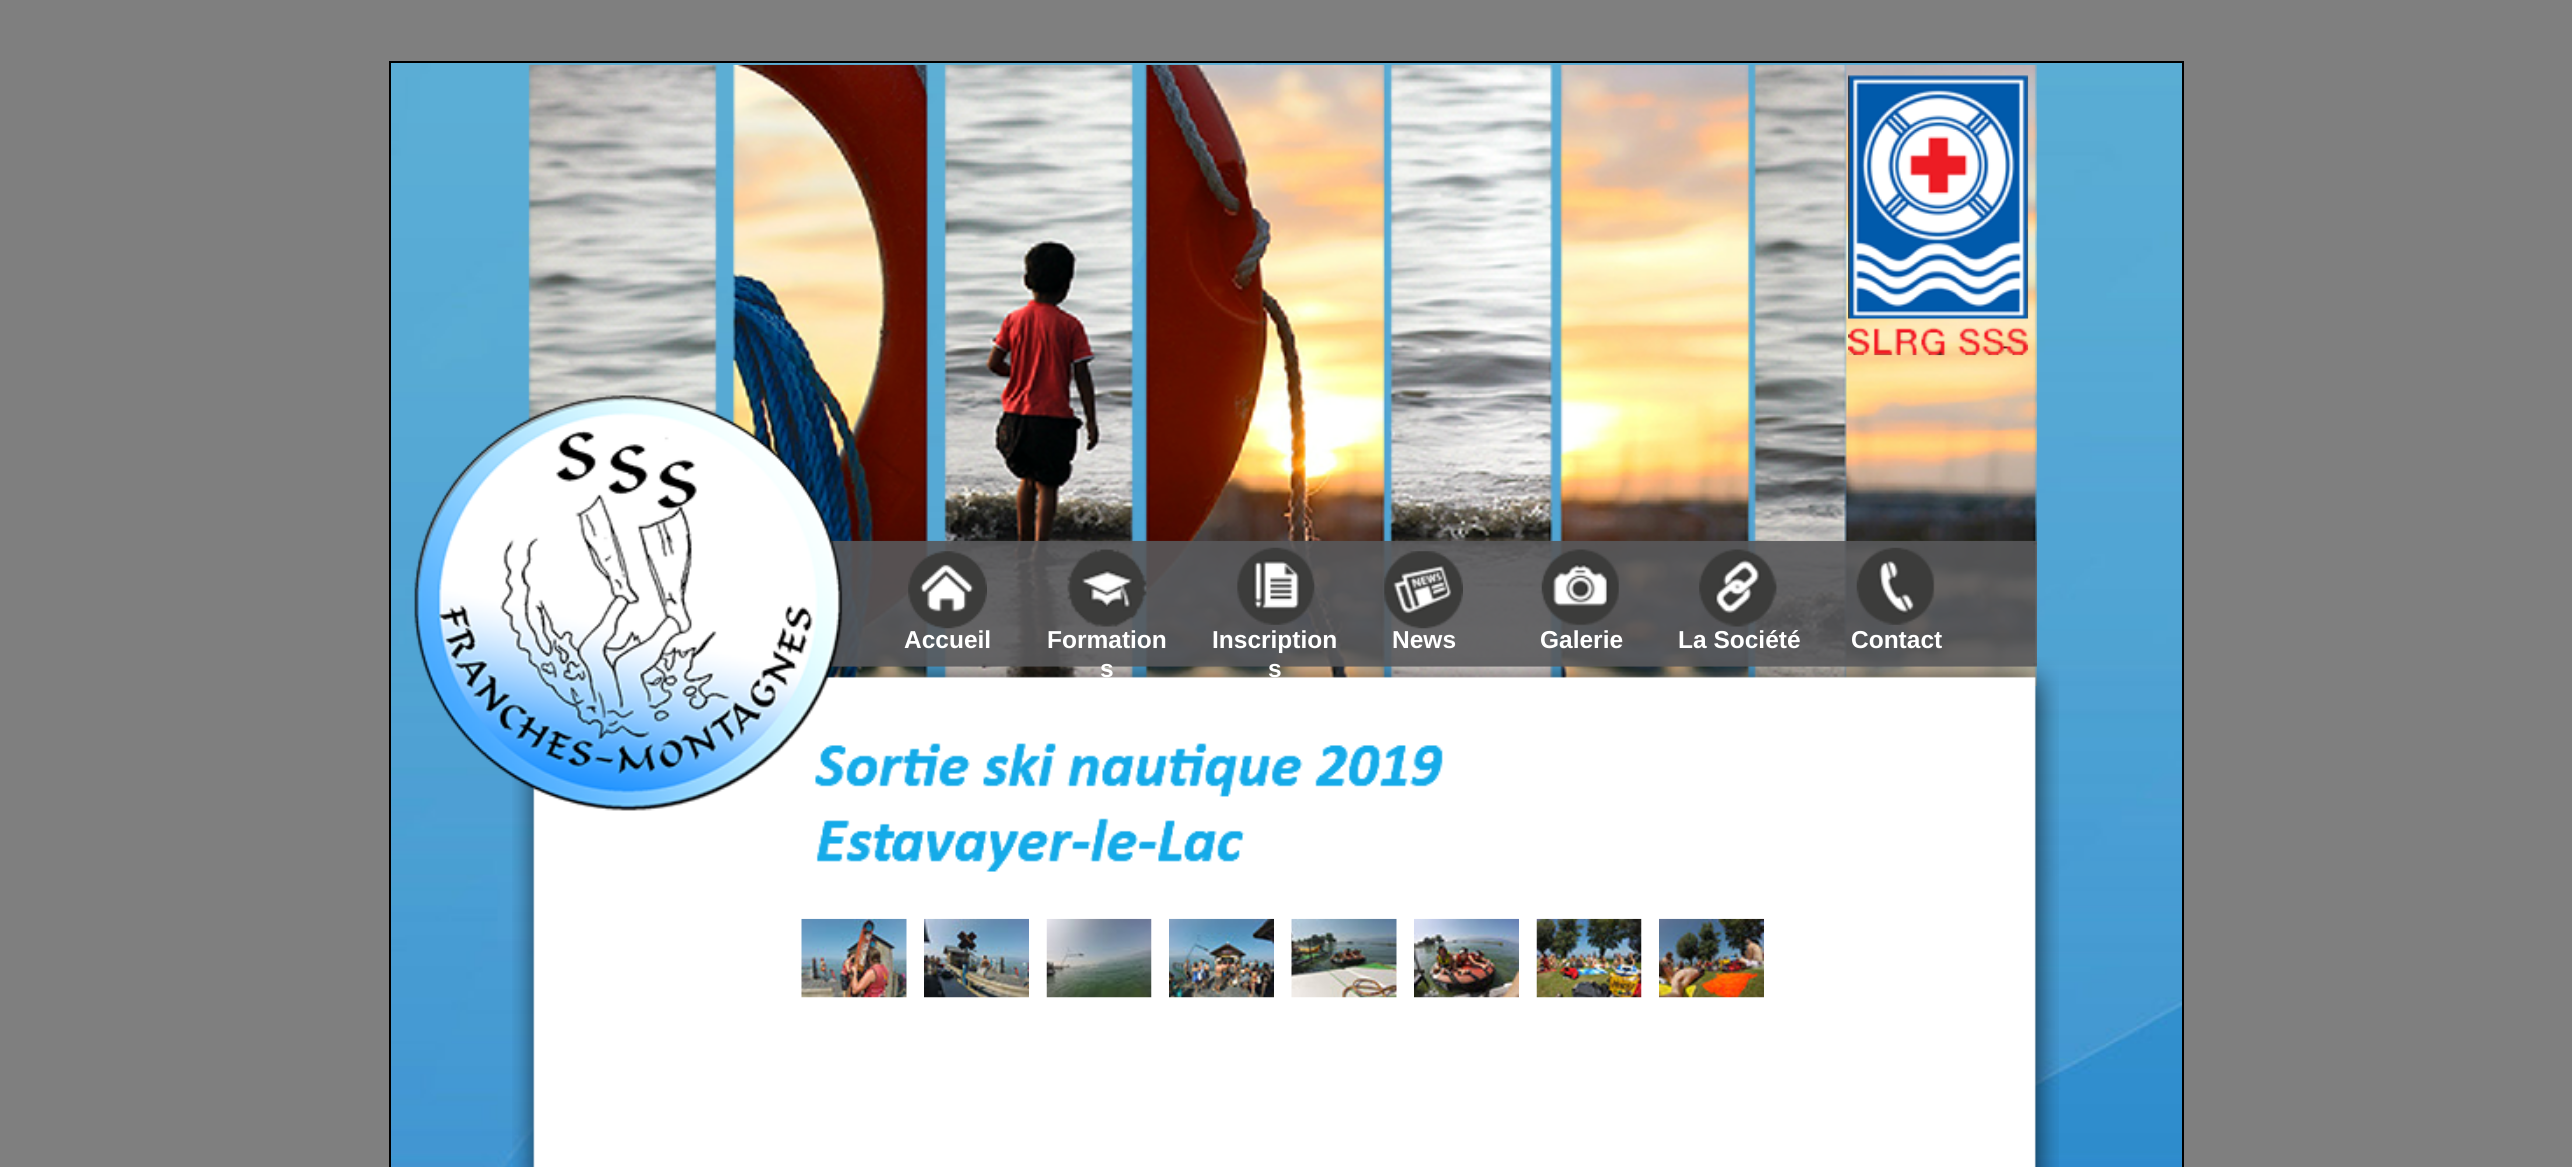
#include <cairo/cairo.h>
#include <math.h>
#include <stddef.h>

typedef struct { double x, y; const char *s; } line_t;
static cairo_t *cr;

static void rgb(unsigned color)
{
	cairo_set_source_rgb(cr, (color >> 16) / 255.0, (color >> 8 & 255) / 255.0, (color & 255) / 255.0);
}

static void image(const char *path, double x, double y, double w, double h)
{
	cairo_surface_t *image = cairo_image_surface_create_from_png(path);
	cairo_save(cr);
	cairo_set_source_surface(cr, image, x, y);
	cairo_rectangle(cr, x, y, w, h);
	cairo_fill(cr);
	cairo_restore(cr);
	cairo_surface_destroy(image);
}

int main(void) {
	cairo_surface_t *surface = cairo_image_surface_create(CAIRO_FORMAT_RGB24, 2572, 1167);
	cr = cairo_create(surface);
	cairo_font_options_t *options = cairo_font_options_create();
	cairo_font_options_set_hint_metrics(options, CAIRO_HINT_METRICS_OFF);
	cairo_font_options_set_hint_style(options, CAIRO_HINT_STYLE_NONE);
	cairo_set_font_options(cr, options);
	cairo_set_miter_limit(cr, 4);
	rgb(0x7f7f7f);
	cairo_paint(cr);
	image("img/1.png", 391, 63, 1791, 1104);
	cairo_rectangle(cr, 390, 62, 1793, 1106);
	rgb(0x000000);
	cairo_stroke(cr);
	image("img/2.png", 528, 64, 1509, 622);
	image("img/3.png", 1848, 75, 181, 281);
	image("img/13.png", 512, 657, 1547, 510);
	image("img/5.png", 829, 540, 1208, 127);
	image("img/4.png", 414, 395, 429, 416);
	image("img/6.png", 908, 551, 79, 78);
	image("img/7.png", 1067, 549, 80, 78);
	image("img/8.png", 1237, 547, 78, 78);
	image("img/9.png", 1384, 551, 79, 78);
	image("img/10.png", 1541, 549, 78, 77);
	image("img/11.png", 1699, 549, 78, 78);
	image("img/12.png", 1856, 547, 79, 78);
	image("img/14.png", 815, 743, 628, 129);
	image("img/15.png", 801, 918, 106, 80);
	image("img/16.png", 924, 918, 105, 80);
	image("img/17.png", 1046, 918, 106, 80);
	image("img/18.png", 1169, 918, 105, 80);
	image("img/19.png", 1291, 918, 106, 80);
	image("img/20.png", 1414, 918, 105, 80);
	image("img/21.png", 1536, 918, 106, 80);
	image("img/22.png", 1659, 918, 105, 80);
	cairo_select_font_face(cr, "Liberation Sans", CAIRO_FONT_SLANT_NORMAL, CAIRO_FONT_WEIGHT_BOLD);
	cairo_set_font_size(cr, 24.5);
	rgb(0xffffff);
	{
		static const line_t items[] = {
			{904, 648, "Accueil"},
			{1047, 648, "Formation"},
			{1100, 677, "s"},
			{1212, 648, "Inscription"},
			{1268, 677, "s"},
			{1392, 648, "News"},
			{1540, 648, "Galerie"},
			{1678, 648, "La Société"},
			{1851, 648, "Contact"},
		};
		for (size_t i = 0; i < sizeof items / sizeof *items; i++) {
			cairo_move_to(cr, items[i].x, items[i].y);
			cairo_show_text(cr, items[i].s);
		}
	}
	cairo_surface_write_to_png(surface, "page.png");
	cairo_font_options_destroy(options);
	cairo_destroy(cr);
	cairo_surface_destroy(surface);
	return 0;
}
